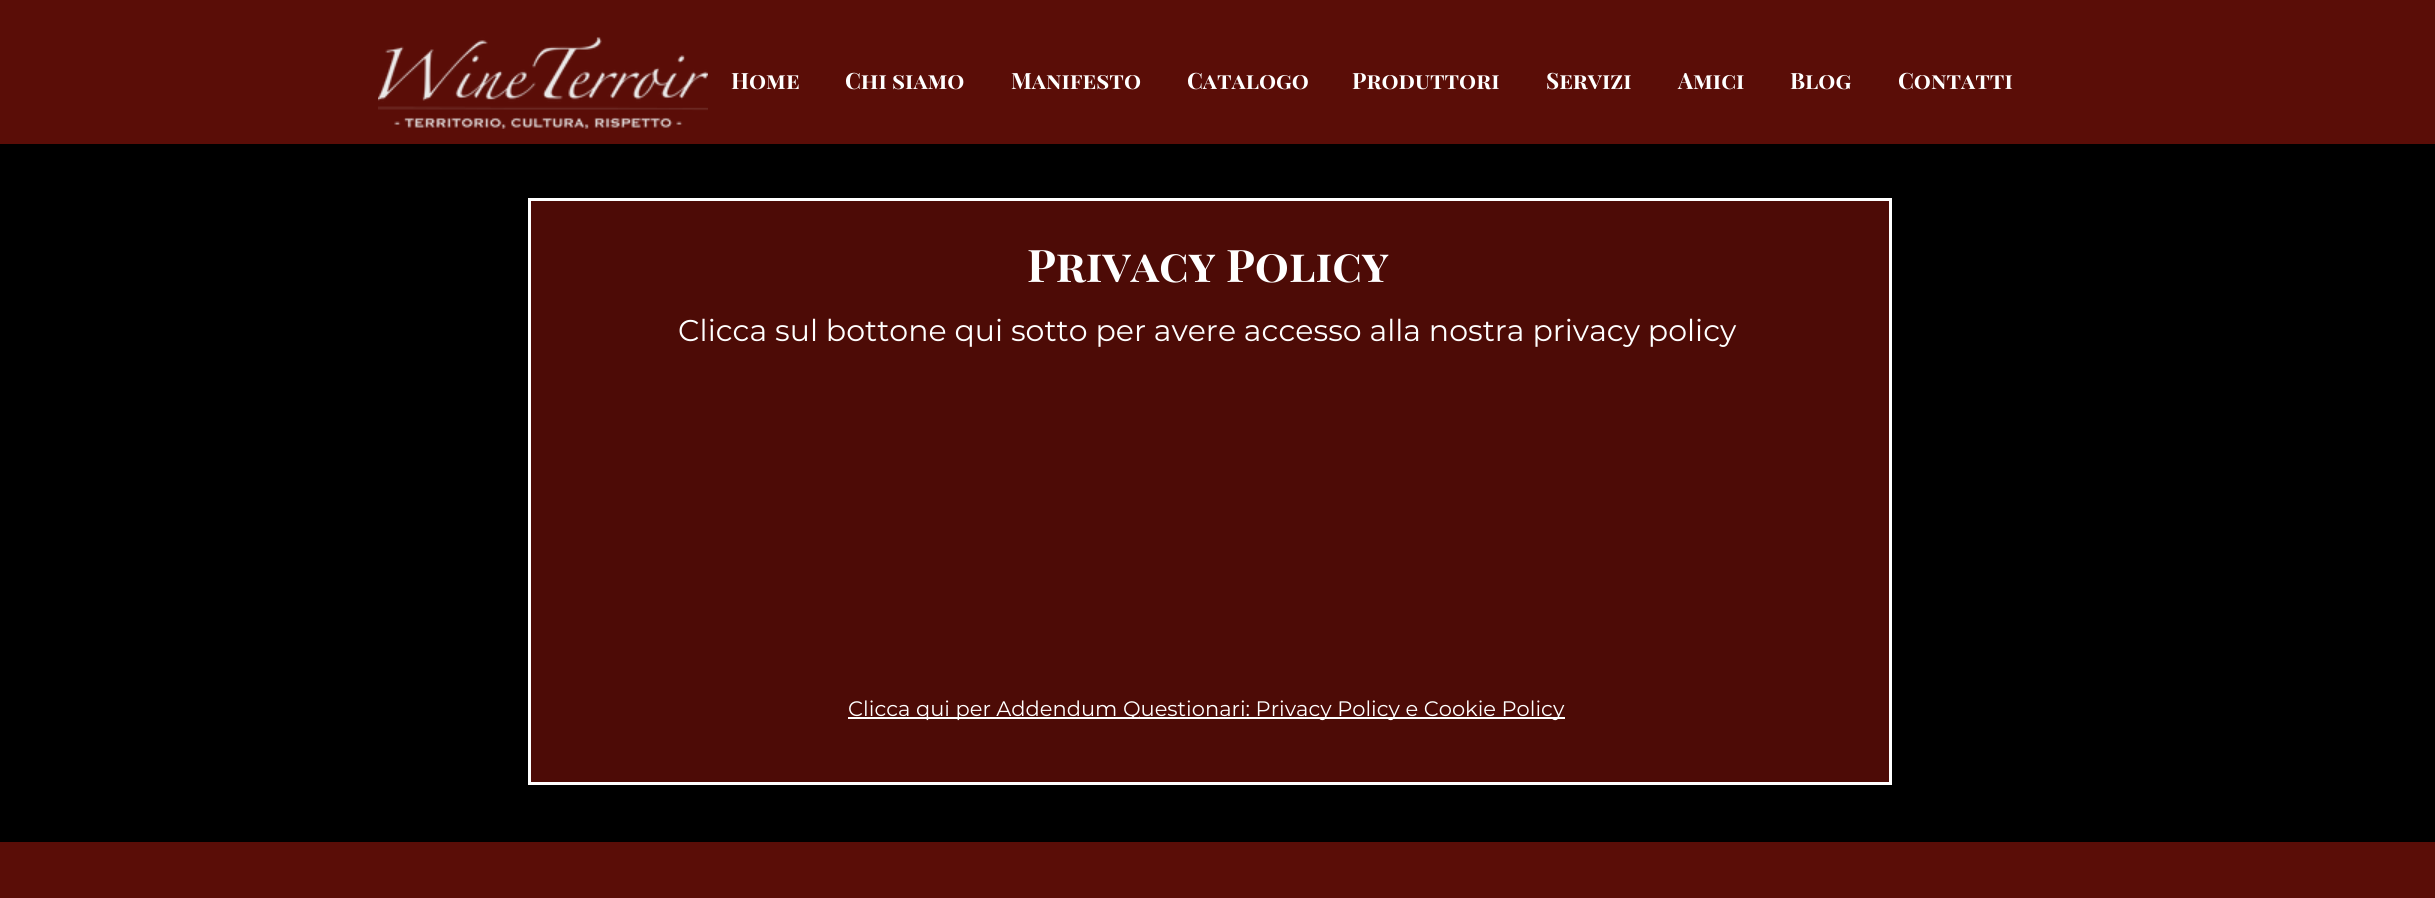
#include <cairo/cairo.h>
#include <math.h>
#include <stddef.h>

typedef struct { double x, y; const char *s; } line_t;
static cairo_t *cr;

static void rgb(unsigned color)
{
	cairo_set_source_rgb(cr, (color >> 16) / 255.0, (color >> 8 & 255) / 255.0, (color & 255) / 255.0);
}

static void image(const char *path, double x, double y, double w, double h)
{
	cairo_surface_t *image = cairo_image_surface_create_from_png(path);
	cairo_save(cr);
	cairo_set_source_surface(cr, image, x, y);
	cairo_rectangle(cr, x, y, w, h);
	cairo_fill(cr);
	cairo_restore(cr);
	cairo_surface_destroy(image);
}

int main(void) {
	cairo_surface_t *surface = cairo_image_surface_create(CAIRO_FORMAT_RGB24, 2435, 898);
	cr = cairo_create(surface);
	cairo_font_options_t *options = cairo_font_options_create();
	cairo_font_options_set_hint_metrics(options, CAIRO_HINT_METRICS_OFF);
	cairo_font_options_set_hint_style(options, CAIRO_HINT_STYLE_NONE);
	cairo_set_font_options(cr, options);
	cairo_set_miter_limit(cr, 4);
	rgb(0x000000);
	cairo_paint(cr);
	rgb(0x5a0d07);
	cairo_rectangle(cr, 0, 0, 2435, 144);
	cairo_fill(cr);
	image("img/1.png", 378, 37, 330, 92);
	rgb(0x4d0b06);
	cairo_rectangle(cr, 529.5, 199.5, 1361, 584);
	cairo_fill_preserve(cr);
	rgb(0xffffff);
	cairo_set_line_width(cr, 3);
	cairo_stroke(cr);
	cairo_rectangle(cr, 848, 717, 717, 2);
	cairo_fill(cr);
	rgb(0x5a0d07);
	cairo_rectangle(cr, 0, 842, 2435, 56);
	cairo_fill(cr);
	cairo_select_font_face(cr, "Playfair Display SC", CAIRO_FONT_SLANT_NORMAL, CAIRO_FONT_WEIGHT_BOLD);
	cairo_set_font_size(cr, 22.5);
	rgb(0xffffff);
	{
		static const line_t items[] = {
			{731, 89, "Home"},
			{845, 89, "Chi siamo"},
			{1011, 89, "Manifesto"},
			{1187, 89, "Catalogo"},
			{1352, 89, "Produttori"},
			{1546, 89, "Servizi"},
			{1678, 89, "Amici"},
			{1790, 89, "Blog"},
			{1898, 89, "Contatti"},
		};
		for (size_t i = 0; i < sizeof items / sizeof *items; i++) {
			cairo_move_to(cr, items[i].x, items[i].y);
			cairo_show_text(cr, items[i].s);
		}
	}
	cairo_set_font_size(cr, 45);
	cairo_move_to(cr, 1027, 282);
	cairo_show_text(cr, "Privacy Policy");
	cairo_select_font_face(cr, "Montserrat", CAIRO_FONT_SLANT_NORMAL, CAIRO_FONT_WEIGHT_NORMAL);
	cairo_set_font_size(cr, 30);
	cairo_move_to(cr, 678, 341);
	cairo_show_text(cr, "Clicca sul bottone qui sotto per avere accesso alla nostra privacy policy");
	cairo_set_font_size(cr, 21);
	cairo_move_to(cr, 848, 716);
	cairo_show_text(cr, "Clicca qui per Addendum Questionari: Privacy Policy e Cookie Policy");
	cairo_surface_write_to_png(surface, "page.png");
	cairo_font_options_destroy(options);
	cairo_destroy(cr);
	cairo_surface_destroy(surface);
	return 0;
}
